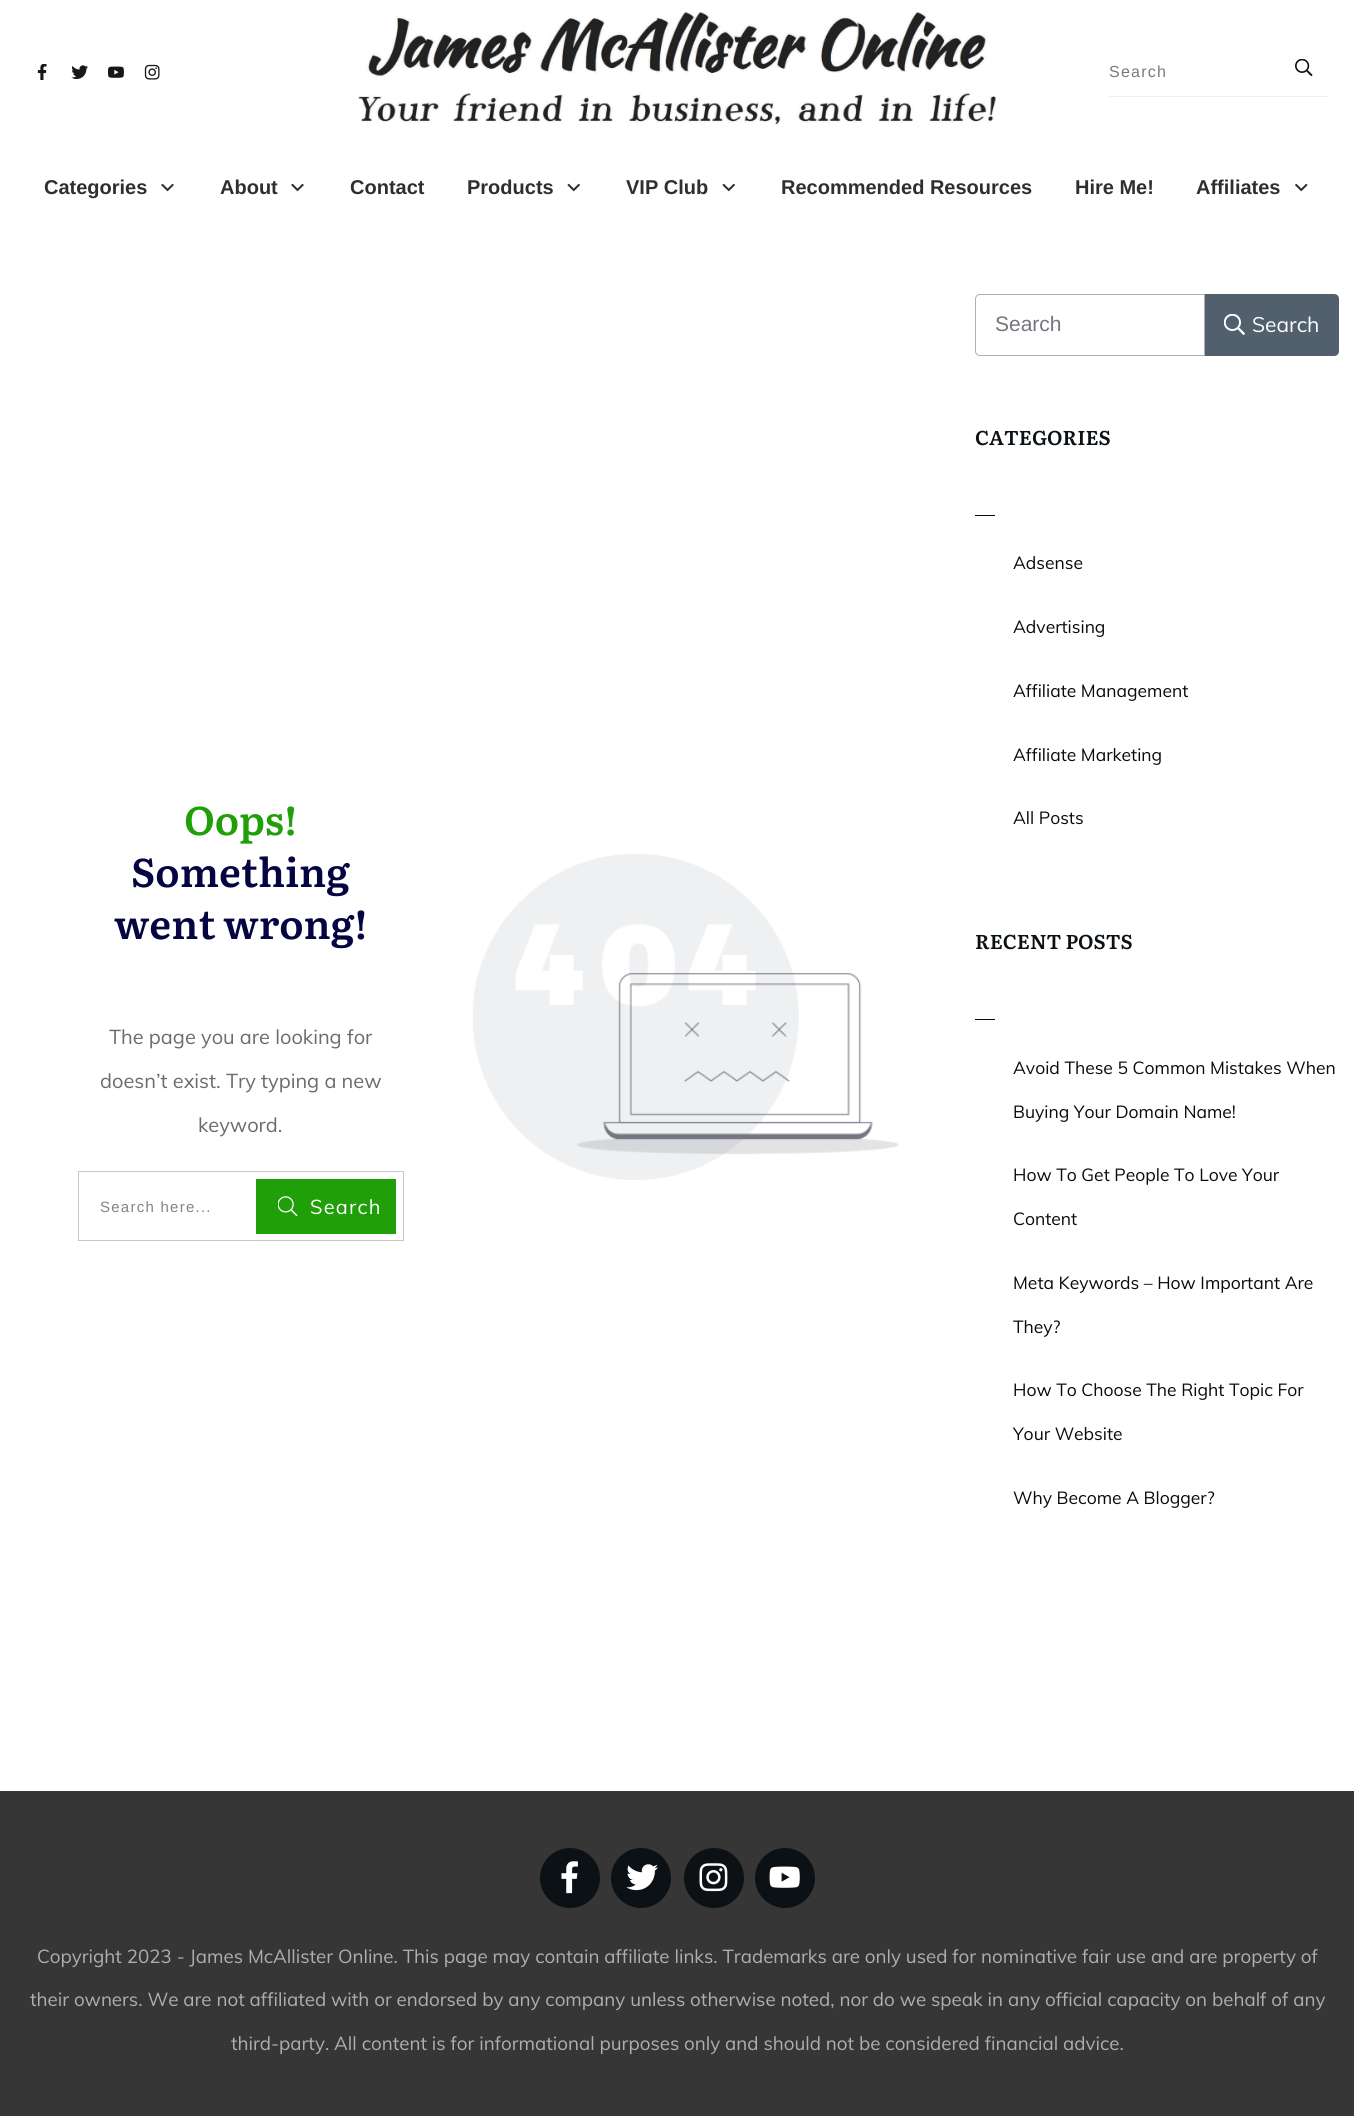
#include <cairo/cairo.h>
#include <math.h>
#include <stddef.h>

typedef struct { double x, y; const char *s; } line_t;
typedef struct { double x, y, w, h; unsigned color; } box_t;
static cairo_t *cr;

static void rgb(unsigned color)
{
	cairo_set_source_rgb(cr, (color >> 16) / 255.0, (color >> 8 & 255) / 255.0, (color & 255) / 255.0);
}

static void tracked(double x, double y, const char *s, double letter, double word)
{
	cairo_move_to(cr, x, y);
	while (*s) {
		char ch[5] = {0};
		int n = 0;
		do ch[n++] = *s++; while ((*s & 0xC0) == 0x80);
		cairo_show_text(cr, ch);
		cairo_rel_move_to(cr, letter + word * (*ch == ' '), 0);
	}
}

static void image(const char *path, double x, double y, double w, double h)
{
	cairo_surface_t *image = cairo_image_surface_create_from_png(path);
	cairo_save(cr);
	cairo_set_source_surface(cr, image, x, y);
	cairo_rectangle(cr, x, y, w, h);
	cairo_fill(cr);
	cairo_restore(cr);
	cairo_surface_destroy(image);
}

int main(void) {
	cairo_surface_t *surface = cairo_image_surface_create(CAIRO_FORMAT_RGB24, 1354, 2116);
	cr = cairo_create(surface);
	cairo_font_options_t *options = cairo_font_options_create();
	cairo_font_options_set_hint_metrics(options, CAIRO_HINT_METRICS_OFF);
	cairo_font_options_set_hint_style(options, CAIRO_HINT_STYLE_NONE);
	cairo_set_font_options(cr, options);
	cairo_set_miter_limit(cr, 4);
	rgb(0xffffff);
	cairo_paint(cr);
	image("img/1.png", 37, 64, 10, 16);
	image("img/2.png", 71, 65, 17, 14);
	image("img/3.png", 108, 66, 16, 12);
	image("img/4.png", 144, 64, 16, 16);
	image("img/5.png", 358, 12, 639, 113);
	rgb(0xf0f0f0);
	cairo_rectangle(cr, 1109, 96, 219, 1);
	cairo_fill(cr);
	image("img/6.png", 1295, 59, 18, 17);
	image("img/7.png", 161, 183, 13, 9);
	image("img/7.png", 291, 183, 13, 9);
	image("img/8.png", 567, 183, 13, 9);
	image("img/8.png", 722, 183, 13, 9);
	image("img/9.png", 1295, 183, 13, 9);
	cairo_rectangle(cr, 78.5, 1171.5, 325, 69);
	rgb(0xc7c7c7);
	cairo_set_line_width(cr, 1);
	cairo_stroke(cr);
	rgb(0x209f09);
	cairo_rectangle(cr, 256, 1179, 140, 55);
	cairo_fill(cr);
	image("img/10.png", 278, 1196, 20, 20);
	image("img/11.png", 472, 854, 427, 326);
	cairo_new_path(cr);
	cairo_move_to(cr, 980, 294.5);
	cairo_line_to(cr, 1204.5, 294.5);
	cairo_line_to(cr, 1204.5, 355.5);
	cairo_line_to(cr, 980, 355.5);
	cairo_curve_to(cr, 977.5, 355.5, 975.5, 353.5, 975.5, 351);
	cairo_line_to(cr, 975.5, 299);
	cairo_curve_to(cr, 975.5, 296.5, 977.5, 294.5, 980, 294.5);
	cairo_close_path(cr);
	rgb(0xa9b0b6);
	cairo_stroke(cr);
	rgb(0x52606d);
	cairo_new_path(cr);
	cairo_move_to(cr, 1205, 294);
	cairo_line_to(cr, 1334, 294);
	cairo_curve_to(cr, 1337, 294, 1339, 296, 1339, 299);
	cairo_line_to(cr, 1339, 351);
	cairo_curve_to(cr, 1339, 354, 1337, 356, 1334, 356);
	cairo_line_to(cr, 1205, 356);
	cairo_close_path(cr);
	cairo_fill(cr);
	image("img/12.png", 1224, 314, 21, 21);
	{
		static const box_t items[] = {
			{975, 515, 20, 1, 0x0a0a0a},
			{975, 1019, 20, 1, 0x0a0a0a},
			{0, 1791, 1354, 325, 0x363636},
		};
		for (size_t i = 0; i < sizeof items / sizeof *items; i++) {
			rgb(items[i].color);
			cairo_rectangle(cr, items[i].x, items[i].y, items[i].w, items[i].h);
			cairo_fill(cr);
		}
	}
	rgb(0x0c1115);
	cairo_arc(cr, 570, 1878, 30, 0, 2 * M_PI);
	cairo_fill(cr);
	image("img/13.png", 561, 1861, 17, 33);
	cairo_arc(cr, 641, 1878, 30, 0, 2 * M_PI);
	cairo_fill(cr);
	image("img/14.png", 626, 1864, 32, 27);
	cairo_arc(cr, 714, 1878, 30, 0, 2 * M_PI);
	cairo_fill(cr);
	image("img/15.png", 699, 1863, 29, 29);
	cairo_arc(cr, 785, 1878, 30, 0, 2 * M_PI);
	cairo_fill(cr);
	image("img/16.png", 769, 1866, 31, 22);
	cairo_select_font_face(cr, "Liberation Sans", CAIRO_FONT_SLANT_NORMAL, CAIRO_FONT_WEIGHT_NORMAL);
	cairo_set_font_size(cr, 16);
	rgb(0x7a7a7a);
	tracked(1109, 77, "Search", 1.25, 0);
	cairo_select_font_face(cr, "Liberation Sans", CAIRO_FONT_SLANT_NORMAL, CAIRO_FONT_WEIGHT_BOLD);
	cairo_set_font_size(cr, 20);
	rgb(0x2f2f2f);
	{
		static const line_t items[] = {
			{44, 194, "Categories"},
			{220, 194, "About"},
			{350, 194, "Contact"},
			{467, 194, "Products"},
			{626, 194, "VIP Club"},
			{781, 194, "Recommended Resources"},
			{1075, 194, "Hire Me!"},
			{1196, 194, "Affiliates"},
		};
		for (size_t i = 0; i < sizeof items / sizeof *items; i++) {
			cairo_move_to(cr, items[i].x, items[i].y);
			cairo_show_text(cr, items[i].s);
		}
	}
	cairo_select_font_face(cr, "Literata SemiBold", CAIRO_FONT_SLANT_NORMAL, CAIRO_FONT_WEIGHT_NORMAL);
	cairo_set_font_size(cr, 40);
	rgb(0x209f09);
	cairo_move_to(cr, 184, 835);
	cairo_show_text(cr, "Oops!");
	rgb(0x050541);
	cairo_move_to(cr, 131, 887);
	cairo_show_text(cr, "Something");
	cairo_move_to(cr, 114, 939);
	cairo_show_text(cr, "went wrong!");
	cairo_select_font_face(cr, "Muli", CAIRO_FONT_SLANT_NORMAL, CAIRO_FONT_WEIGHT_NORMAL);
	cairo_set_font_size(cr, 20);
	rgb(0x6a6b6c);
	{
		static const line_t items[] = {
			{109, 1044, "The page you are looking for"},
			{100, 1088, "doesn’t exist. Try typing a new"},
			{198, 1132, "keyword."},
		};
		for (size_t i = 0; i < sizeof items / sizeof *items; i++) {
			cairo_move_to(cr, items[i].x, items[i].y);
			cairo_show_text(cr, items[i].s);
		}
	}
	cairo_select_font_face(cr, "Liberation Sans", CAIRO_FONT_SLANT_NORMAL, CAIRO_FONT_WEIGHT_NORMAL);
	cairo_set_font_size(cr, 15);
	rgb(0x858585);
	tracked(100, 1212, "Search here...", 1.25, 0);
	cairo_select_font_face(cr, "Muli", CAIRO_FONT_SLANT_NORMAL, CAIRO_FONT_WEIGHT_NORMAL);
	cairo_set_font_size(cr, 20);
	rgb(0xffffff);
	tracked(310, 1214, "Search", 1.25, 0);
	cairo_select_font_face(cr, "Liberation Sans", CAIRO_FONT_SLANT_NORMAL, CAIRO_FONT_WEIGHT_NORMAL);
	cairo_set_font_size(cr, 21);
	rgb(0x73787f);
	cairo_move_to(cr, 995, 331);
	cairo_show_text(cr, "Search");
	cairo_select_font_face(cr, "Muli", CAIRO_FONT_SLANT_NORMAL, CAIRO_FONT_WEIGHT_NORMAL);
	rgb(0xffffff);
	cairo_move_to(cr, 1252, 332);
	cairo_show_text(cr, "Search");
	cairo_select_font_face(cr, "Literata SemiBold", CAIRO_FONT_SLANT_NORMAL, CAIRO_FONT_WEIGHT_NORMAL);
	cairo_set_font_size(cr, 20);
	rgb(0x0c1115);
	cairo_move_to(cr, 975, 445);
	cairo_show_text(cr, "CATEGORIES");
	cairo_select_font_face(cr, "Muli", CAIRO_FONT_SLANT_NORMAL, CAIRO_FONT_WEIGHT_NORMAL);
	cairo_set_font_size(cr, 17.5);
	rgb(0x0a0a0a);
	{
		static const line_t items[] = {
			{1013, 569, "Adsense"},
			{1013, 633, "Advertising"},
			{1013, 697, "Affiliate Management"},
			{1013, 761, "Affiliate Marketing"},
			{1013, 824, "All Posts"},
		};
		for (size_t i = 0; i < sizeof items / sizeof *items; i++) {
			cairo_move_to(cr, items[i].x, items[i].y);
			cairo_show_text(cr, items[i].s);
		}
	}
	cairo_select_font_face(cr, "Literata SemiBold", CAIRO_FONT_SLANT_NORMAL, CAIRO_FONT_WEIGHT_NORMAL);
	cairo_set_font_size(cr, 20);
	rgb(0x0c1115);
	cairo_move_to(cr, 975, 949);
	cairo_show_text(cr, "RECENT POSTS");
	cairo_select_font_face(cr, "Muli", CAIRO_FONT_SLANT_NORMAL, CAIRO_FONT_WEIGHT_NORMAL);
	cairo_set_font_size(cr, 17.5);
	rgb(0x0a0a0a);
	{
		static const line_t items[] = {
			{1013, 1074, "Avoid These 5 Common Mistakes When"},
			{1013, 1118, "Buying Your Domain Name!"},
			{1013, 1181, "How To Get People To Love Your"},
			{1013, 1225, "Content"},
			{1013, 1289, "Meta Keywords – How Important Are"},
			{1013, 1333, "They?"},
			{1013, 1396, "How To Choose The Right Topic For"},
			{1013, 1440, "Your Website"},
			{1013, 1504, "Why Become A Blogger?"},
		};
		for (size_t i = 0; i < sizeof items / sizeof *items; i++) {
			cairo_move_to(cr, items[i].x, items[i].y);
			cairo_show_text(cr, items[i].s);
		}
	}
	cairo_set_font_size(cr, 18.75);
	rgb(0xafafaf);
	{
		static const line_t items[] = {
			{37, 1963, "Copyright 2023 - James McAllister Online. This page may contain affiliate links. Trademarks are only used for nominative fair use and are property of"},
			{30, 2006, "their owners. We are not affiliated with or endorsed by any company unless otherwise noted, nor do we speak in any official capacity on behalf of any"},
			{231, 2050, "third-party. All content is for informational purposes only and should not be considered financial advice."},
		};
		for (size_t i = 0; i < sizeof items / sizeof *items; i++) {
			cairo_move_to(cr, items[i].x, items[i].y);
			cairo_show_text(cr, items[i].s);
		}
	}
	cairo_surface_write_to_png(surface, "page.png");
	cairo_font_options_destroy(options);
	cairo_destroy(cr);
	cairo_surface_destroy(surface);
	return 0;
}
